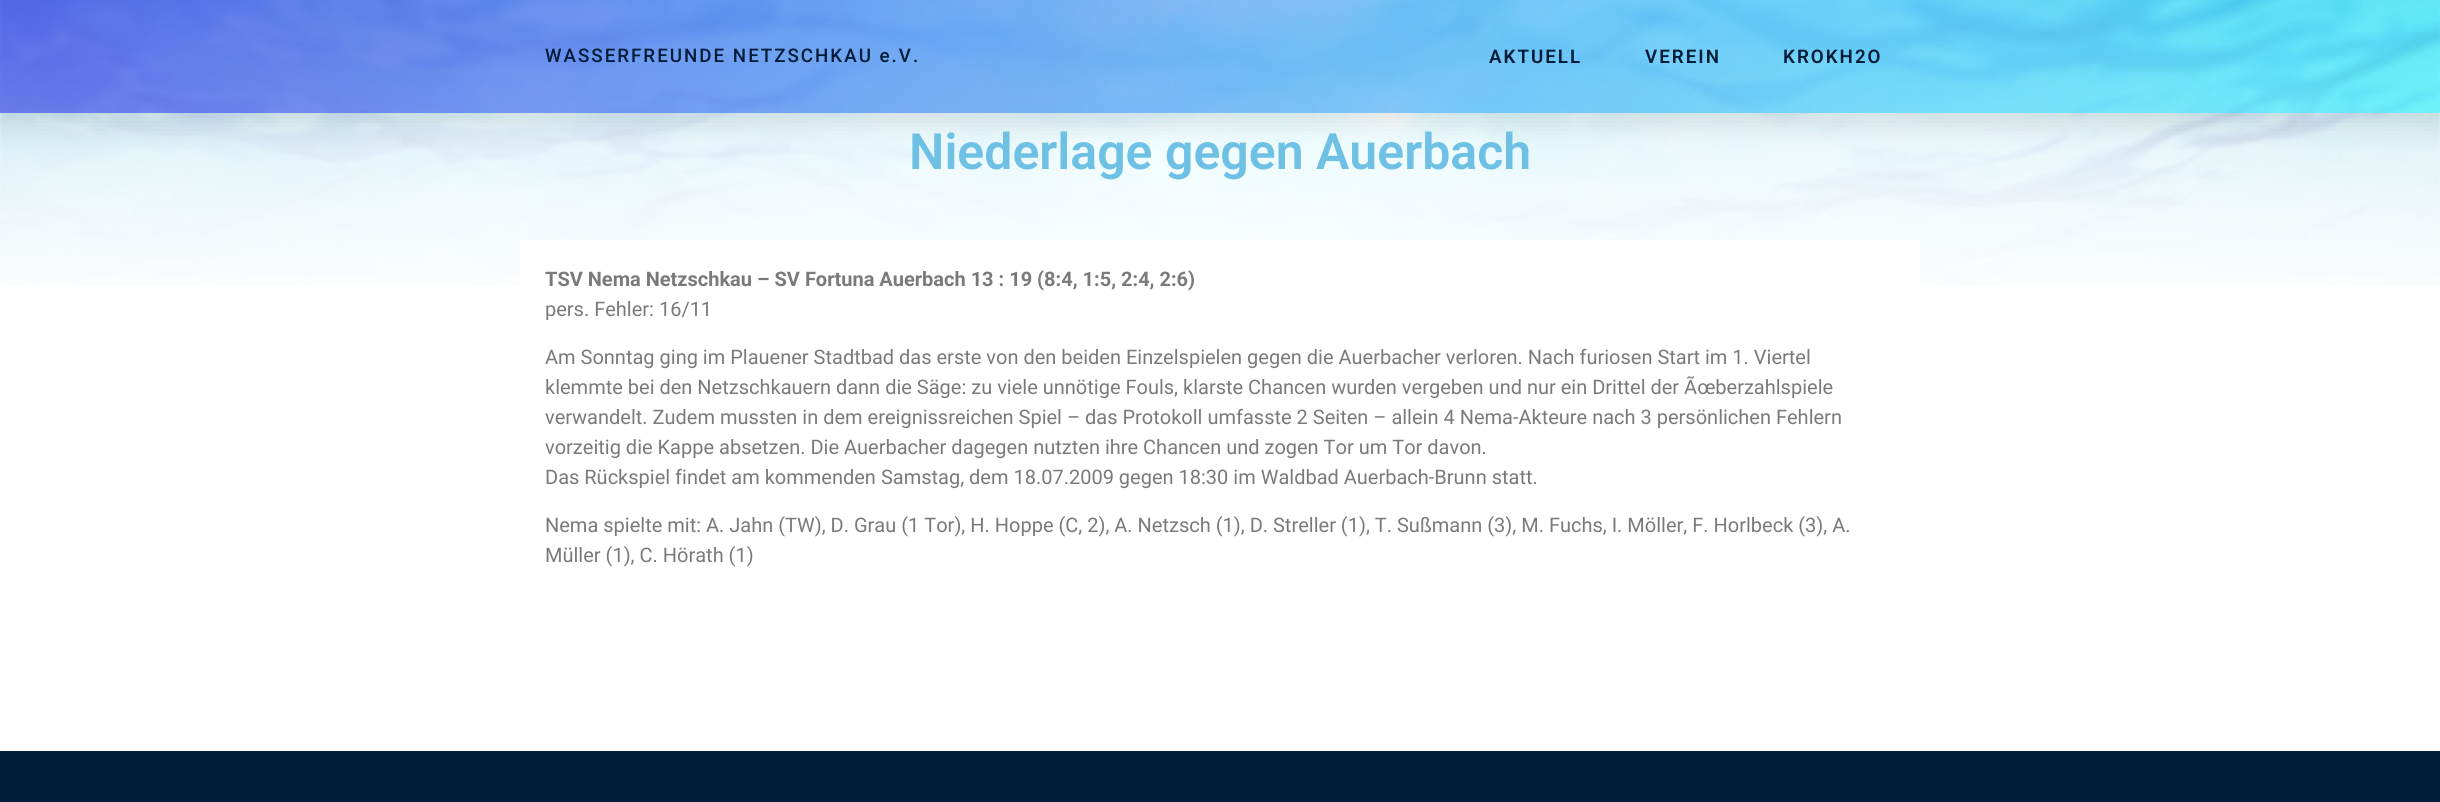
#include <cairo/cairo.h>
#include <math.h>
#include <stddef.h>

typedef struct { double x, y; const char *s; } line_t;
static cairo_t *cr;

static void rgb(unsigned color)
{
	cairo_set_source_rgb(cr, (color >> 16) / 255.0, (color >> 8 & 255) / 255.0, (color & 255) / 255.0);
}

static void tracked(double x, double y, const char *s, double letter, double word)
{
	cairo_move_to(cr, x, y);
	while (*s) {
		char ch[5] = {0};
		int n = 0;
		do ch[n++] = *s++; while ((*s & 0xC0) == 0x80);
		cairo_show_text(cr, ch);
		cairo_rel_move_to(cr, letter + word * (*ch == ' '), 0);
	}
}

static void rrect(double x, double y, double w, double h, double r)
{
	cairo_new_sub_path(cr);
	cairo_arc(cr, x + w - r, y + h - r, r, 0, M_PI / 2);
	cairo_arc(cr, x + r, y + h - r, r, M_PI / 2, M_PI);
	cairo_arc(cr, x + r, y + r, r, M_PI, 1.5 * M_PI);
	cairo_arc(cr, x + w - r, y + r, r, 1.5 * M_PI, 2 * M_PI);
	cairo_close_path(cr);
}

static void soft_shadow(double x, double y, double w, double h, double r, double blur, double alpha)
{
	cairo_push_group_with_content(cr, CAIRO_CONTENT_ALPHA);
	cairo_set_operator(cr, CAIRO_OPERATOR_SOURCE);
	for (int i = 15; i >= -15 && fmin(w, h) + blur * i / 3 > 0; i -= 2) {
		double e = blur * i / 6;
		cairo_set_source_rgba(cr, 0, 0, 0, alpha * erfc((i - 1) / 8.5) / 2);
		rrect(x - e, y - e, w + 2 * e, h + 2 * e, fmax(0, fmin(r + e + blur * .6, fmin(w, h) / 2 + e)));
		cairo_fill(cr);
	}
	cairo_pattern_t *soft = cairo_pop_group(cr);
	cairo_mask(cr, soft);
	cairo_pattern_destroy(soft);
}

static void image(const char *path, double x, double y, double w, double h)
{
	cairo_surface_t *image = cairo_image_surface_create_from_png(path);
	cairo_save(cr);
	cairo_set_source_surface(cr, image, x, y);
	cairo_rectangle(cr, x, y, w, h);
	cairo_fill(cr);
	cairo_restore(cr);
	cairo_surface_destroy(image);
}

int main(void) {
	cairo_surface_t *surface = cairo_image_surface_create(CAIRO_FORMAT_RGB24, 2440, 802);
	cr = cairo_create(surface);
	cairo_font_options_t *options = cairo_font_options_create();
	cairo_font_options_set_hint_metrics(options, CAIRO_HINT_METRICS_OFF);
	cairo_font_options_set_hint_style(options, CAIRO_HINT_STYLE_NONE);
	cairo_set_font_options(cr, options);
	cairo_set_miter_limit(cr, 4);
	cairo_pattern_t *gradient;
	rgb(0xffffff);
	cairo_paint(cr);
	image("img/1.png", 0, 0, 2440, 286);
	cairo_save(cr);
	cairo_set_fill_rule(cr, CAIRO_FILL_RULE_EVEN_ODD);
	cairo_new_path(cr);
	cairo_move_to(cr, 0, 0);
	cairo_line_to(cr, 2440, 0);
	cairo_line_to(cr, 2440, 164);
	cairo_line_to(cr, 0, 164);
	cairo_close_path(cr);
	cairo_move_to(cr, 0, 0);
	cairo_line_to(cr, 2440, 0);
	cairo_line_to(cr, 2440, 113);
	cairo_line_to(cr, 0, 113);
	cairo_close_path(cr);
	cairo_clip(cr);
	rgb(0x000000);
	soft_shadow(0, 13, 2440, 112, 0, 12.5, 0.1);
	cairo_restore(cr);
	gradient = cairo_pattern_create_linear(476, -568, 1964, 680);
	cairo_pattern_add_color_stop_rgba(gradient, 0, 0.027, 0, 0.867, 0.51);
	cairo_pattern_add_color_stop_rgba(gradient, 1, 0, 0.949, 1, 0.48);
	cairo_set_source(cr, gradient);
	cairo_pattern_destroy(gradient);
	cairo_rectangle(cr, 0, 0, 2440, 113);
	cairo_fill(cr);
	rgb(0xffffff);
	cairo_rectangle(cr, 520, 240, 1400, 46);
	cairo_fill(cr);
	rgb(0x001c38);
	cairo_rectangle(cr, 0, 751, 2440, 51);
	cairo_fill(cr);
	cairo_select_font_face(cr, "Roboto Medium", CAIRO_FONT_SLANT_NORMAL, CAIRO_FONT_WEIGHT_NORMAL);
	cairo_set_font_size(cr, 18.75);
	tracked(545, 62, "WASSERFREUNDE NETZSCHKAU e.V.", 2, 0);
	cairo_select_font_face(cr, "Roboto SemiBold", CAIRO_FONT_SLANT_NORMAL, CAIRO_FONT_WEIGHT_NORMAL);
	{
		static const line_t items[] = {
			{1489, 63, "AKTUELL"},
			{1645, 63, "VEREIN"},
			{1783, 63, "KROKH2O"},
		};
		for (size_t i = 0; i < sizeof items / sizeof *items; i++) {
			tracked(items[i].x, items[i].y, items[i].s, 2, 0);
		}
	}
	cairo_set_font_size(cr, 50);
	rgb(0x6ec1e4);
	cairo_move_to(cr, 909, 169);
	cairo_show_text(cr, "Niederlage gegen Auerbach");
	cairo_select_font_face(cr, "Roboto", CAIRO_FONT_SLANT_NORMAL, CAIRO_FONT_WEIGHT_BOLD);
	cairo_set_font_size(cr, 20);
	rgb(0x7a7a7a);
	cairo_move_to(cr, 545, 286);
	cairo_show_text(cr, "TSV Nema Netzschkau – SV Fortuna Auerbach 13 : 19 (8:4, 1:5, 2:4, 2:6)");
	cairo_select_font_face(cr, "Roboto", CAIRO_FONT_SLANT_NORMAL, CAIRO_FONT_WEIGHT_NORMAL);
	{
		static const line_t items[] = {
			{545, 316, "pers. Fehler: 16/11"},
			{545, 364, "Am Sonntag ging im Plauener Stadtbad das erste von den beiden Einzelspielen gegen die Auerbacher verloren. Nach furiosen Start im 1. Viertel"},
			{545, 394, "klemmte bei den Netzschkauern dann die Säge: zu viele unnötige Fouls, klarste Chancen wurden vergeben und nur ein Drittel der Ãœberzahlspiele"},
			{545, 424, "verwandelt. Zudem mussten in dem ereignissreichen Spiel – das Protokoll umfasste 2 Seiten – allein 4 Nema-Akteure nach 3 persönlichen Fehlern"},
			{545, 454, "vorzeitig die Kappe absetzen. Die Auerbacher dagegen nutzten ihre Chancen und zogen Tor um Tor davon."},
			{545, 484, "Das Rückspiel findet am kommenden Samstag, dem 18.07.2009 gegen 18:30 im Waldbad Auerbach-Brunn statt."},
			{545, 532, "Nema spielte mit: A. Jahn (TW), D. Grau (1 Tor), H. Hoppe (C, 2), A. Netzsch (1), D. Streller (1), T. Sußmann (3), M. Fuchs, I. Möller, F. Horlbeck (3), A."},
			{545, 562, "Müller (1), C. Hörath (1)"},
		};
		for (size_t i = 0; i < sizeof items / sizeof *items; i++) {
			cairo_move_to(cr, items[i].x, items[i].y);
			cairo_show_text(cr, items[i].s);
		}
	}
	cairo_surface_write_to_png(surface, "page.png");
	cairo_font_options_destroy(options);
	cairo_destroy(cr);
	cairo_surface_destroy(surface);
	return 0;
}
